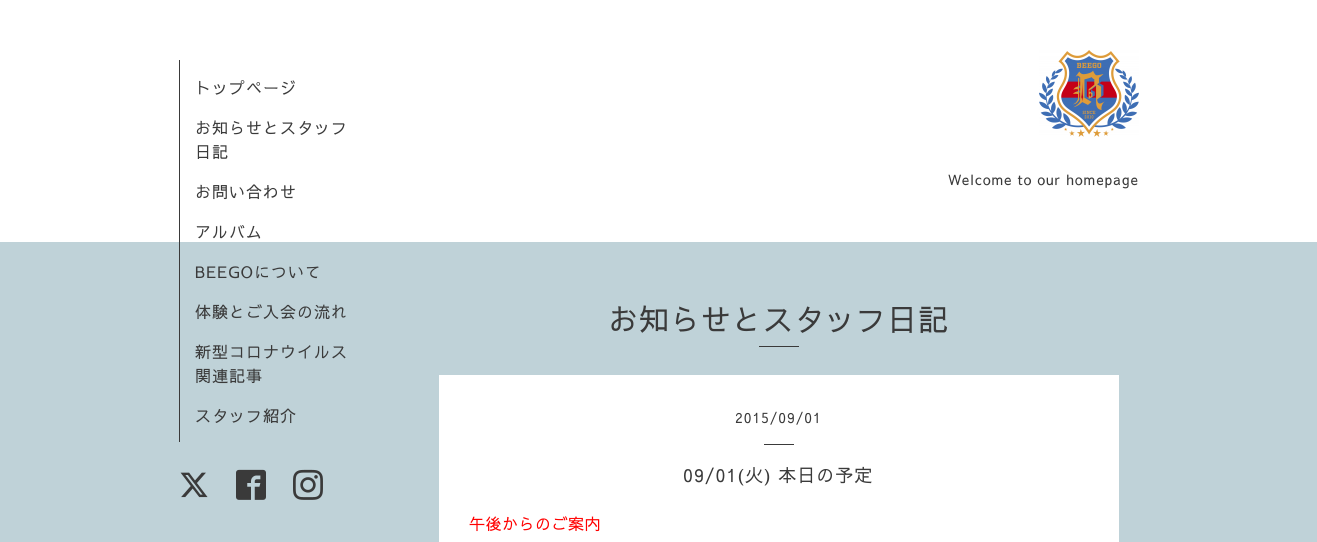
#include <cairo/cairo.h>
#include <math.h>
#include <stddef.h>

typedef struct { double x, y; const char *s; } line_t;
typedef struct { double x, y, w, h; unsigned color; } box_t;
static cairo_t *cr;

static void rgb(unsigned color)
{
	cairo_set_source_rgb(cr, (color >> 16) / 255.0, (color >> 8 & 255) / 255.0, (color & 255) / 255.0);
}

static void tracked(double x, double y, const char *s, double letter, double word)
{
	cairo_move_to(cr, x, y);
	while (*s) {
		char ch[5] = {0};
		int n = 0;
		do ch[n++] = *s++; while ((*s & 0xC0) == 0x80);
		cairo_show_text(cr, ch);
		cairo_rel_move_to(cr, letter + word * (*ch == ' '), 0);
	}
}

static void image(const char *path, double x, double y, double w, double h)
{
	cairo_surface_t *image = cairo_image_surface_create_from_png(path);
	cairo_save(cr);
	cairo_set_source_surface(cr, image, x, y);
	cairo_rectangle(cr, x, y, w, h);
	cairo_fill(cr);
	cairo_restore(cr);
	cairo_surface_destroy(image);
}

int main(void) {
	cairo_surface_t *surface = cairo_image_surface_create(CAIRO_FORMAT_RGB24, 1317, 542);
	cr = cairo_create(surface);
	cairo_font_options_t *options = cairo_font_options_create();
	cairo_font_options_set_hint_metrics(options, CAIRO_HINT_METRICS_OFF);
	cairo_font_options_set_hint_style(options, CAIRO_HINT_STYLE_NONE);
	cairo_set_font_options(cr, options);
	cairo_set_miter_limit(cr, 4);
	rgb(0xffffff);
	cairo_paint(cr);
	rgb(0xbfd2d8);
	cairo_rectangle(cr, 0, 242, 1317, 300);
	cairo_fill(cr);
	rgb(0x3a3a3a);
	cairo_rectangle(cr, 179, 60, 1, 382);
	cairo_fill(cr);
	image("img/1.png", 180, 472, 28, 26);
	image("img/2.png", 236, 469, 30, 31);
	image("img/3.png", 293, 469, 30, 31);
	image("img/4.png", 1039, 50, 100, 87);
	{
		static const box_t items[] = {
			{759, 346, 40, 1, 0x3a3a3a},
			{439, 375, 680, 167, 0xffffff},
			{764, 444, 30, 1, 0x3a3a3a},
		};
		for (size_t i = 0; i < sizeof items / sizeof *items; i++) {
			rgb(items[i].color);
			cairo_rectangle(cr, items[i].x, items[i].y, items[i].w, items[i].h);
			cairo_fill(cr);
		}
	}
	cairo_select_font_face(cr, "Sawarabi Gothic", CAIRO_FONT_SLANT_NORMAL, CAIRO_FONT_WEIGHT_NORMAL);
	cairo_set_font_size(cr, 16);
	{
		static const line_t items[] = {
			{195, 94, "トップページ"},
			{195, 134, "お知らせとスタッフ"},
			{195, 158, "日記"},
			{195, 198, "お問い合わせ"},
			{195, 238, "アルバム"},
			{195, 278, "BEEGOについて"},
			{195, 318, "体験とご入会の流れ"},
			{195, 358, "新型コロナウイルス"},
			{195, 382, "関連記事"},
			{195, 422, "スタッフ紹介"},
		};
		for (size_t i = 0; i < sizeof items / sizeof *items; i++) {
			tracked(items[i].x, items[i].y, items[i].s, 1, 0);
		}
	}
	cairo_set_font_size(cr, 14);
	tracked(948, 185, "Welcome to our homepage", 1, 0);
	cairo_set_font_size(cr, 30);
	tracked(608, 331, "お知らせとスタッフ日記", 1, 0);
	cairo_set_font_size(cr, 14);
	tracked(735, 423, "2015/09/01", 1, 0);
	cairo_set_font_size(cr, 18);
	tracked(683, 482, "09/01(火) 本日の予定", 1, 0);
	cairo_set_font_size(cr, 16);
	rgb(0xff0000);
	tracked(469, 530, "午後からのご案内", 0.5, 0);
	cairo_surface_write_to_png(surface, "page.png");
	cairo_font_options_destroy(options);
	cairo_destroy(cr);
	cairo_surface_destroy(surface);
	return 0;
}
